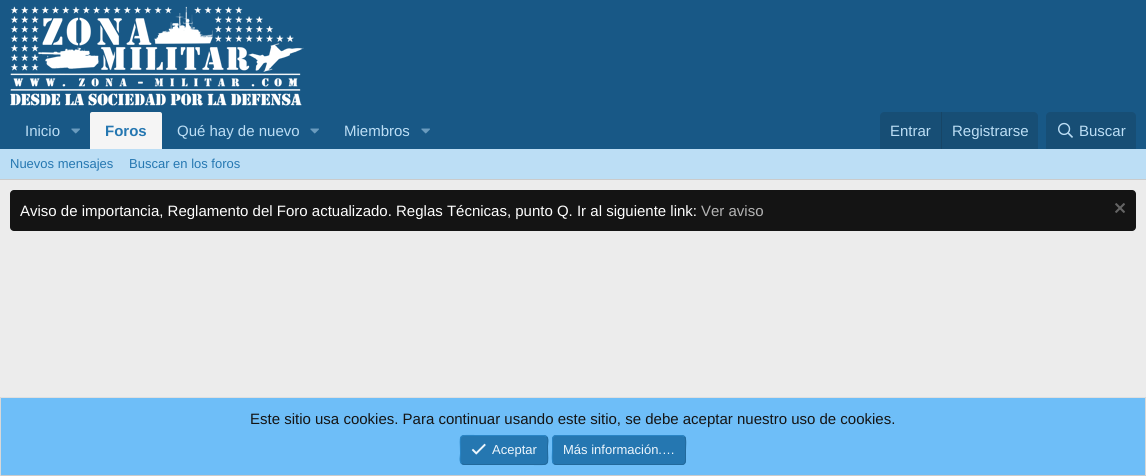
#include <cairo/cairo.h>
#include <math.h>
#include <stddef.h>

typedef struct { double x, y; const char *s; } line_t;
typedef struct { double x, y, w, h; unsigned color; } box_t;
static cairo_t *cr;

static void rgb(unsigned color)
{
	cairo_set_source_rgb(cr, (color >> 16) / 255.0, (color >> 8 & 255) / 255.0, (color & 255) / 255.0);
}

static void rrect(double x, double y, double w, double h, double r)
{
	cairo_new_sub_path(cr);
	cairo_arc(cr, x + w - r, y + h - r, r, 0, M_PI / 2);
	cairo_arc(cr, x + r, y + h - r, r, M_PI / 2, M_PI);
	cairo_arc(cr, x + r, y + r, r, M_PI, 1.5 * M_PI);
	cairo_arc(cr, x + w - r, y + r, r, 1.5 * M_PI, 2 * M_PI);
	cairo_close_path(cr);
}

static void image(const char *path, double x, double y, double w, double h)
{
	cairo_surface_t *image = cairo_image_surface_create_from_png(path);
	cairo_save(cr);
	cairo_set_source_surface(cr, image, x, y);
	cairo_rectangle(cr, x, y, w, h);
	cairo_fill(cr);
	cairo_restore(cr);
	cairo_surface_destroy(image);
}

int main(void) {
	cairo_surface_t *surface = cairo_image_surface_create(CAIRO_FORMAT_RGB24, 1146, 476);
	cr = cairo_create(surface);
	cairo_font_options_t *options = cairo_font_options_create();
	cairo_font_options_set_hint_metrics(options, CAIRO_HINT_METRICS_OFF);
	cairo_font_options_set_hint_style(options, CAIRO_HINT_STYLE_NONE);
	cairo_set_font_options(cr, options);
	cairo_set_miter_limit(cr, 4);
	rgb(0xececec);
	cairo_paint(cr);
	rgb(0x185886);
	cairo_rectangle(cr, 0, 0, 1146, 149);
	cairo_fill(cr);
	image("img/1.png", 10, 6, 294, 100);
	image("img/2.png", 71, 128, 9, 6);
	rgb(0xf5f5f5);
	cairo_new_path(cr);
	cairo_move_to(cr, 92, 112);
	cairo_line_to(cr, 160, 112);
	cairo_curve_to(cr, 161, 112, 162, 113, 162, 114);
	cairo_line_to(cr, 162, 149);
	cairo_line_to(cr, 90, 149);
	cairo_line_to(cr, 90, 114);
	cairo_curve_to(cr, 90, 113, 91, 112, 92, 112);
	cairo_close_path(cr);
	cairo_fill(cr);
	image("img/2.png", 310, 128, 9, 6);
	image("img/2.png", 421, 128, 9, 6);
	rgb(0x174e75);
	cairo_new_path(cr);
	cairo_move_to(cr, 884, 112);
	cairo_line_to(cr, 1034, 112);
	cairo_curve_to(cr, 1036, 112, 1038, 114, 1038, 116);
	cairo_line_to(cr, 1038, 149);
	cairo_line_to(cr, 880, 149);
	cairo_line_to(cr, 880, 116);
	cairo_curve_to(cr, 880, 114, 882, 112, 884, 112);
	cairo_close_path(cr);
	cairo_fill(cr);
	rgb(0x174566);
	cairo_rectangle(cr, 941, 112, 1, 37);
	cairo_fill(cr);
	rgb(0x174e75);
	cairo_new_path(cr);
	cairo_move_to(cr, 1050, 112);
	cairo_line_to(cr, 1132, 112);
	cairo_curve_to(cr, 1134, 112, 1136, 114, 1136, 116);
	cairo_line_to(cr, 1136, 149);
	cairo_line_to(cr, 1046, 149);
	cairo_line_to(cr, 1046, 116);
	cairo_curve_to(cr, 1046, 114, 1048, 112, 1050, 112);
	cairo_close_path(cr);
	cairo_fill(cr);
	image("img/3.png", 1058, 122, 15, 16);
	rgb(0xbcdef5);
	cairo_rectangle(cr, 0, 149, 1146, 30);
	cairo_fill(cr);
	rgb(0xcbcbcb);
	cairo_rectangle(cr, 0, 179, 1146, 1);
	cairo_fill(cr);
	rgb(0x141414);
	rrect(10, 190, 1126, 41, 4);
	cairo_fill(cr);
	image("img/4.png", 1115, 203, 10, 10);
	{
		static const box_t items[] = {
			{1, 398, 1144, 77, 0x6ebef8},
			{0, 397, 1146, 1, 0xdfdfdf},
			{1145, 397, 1, 79, 0xd8d8d8},
			{0, 475, 1146, 1, 0xcbcbcb},
			{0, 397, 1, 79, 0xd8d8d8},
		};
		for (size_t i = 0; i < sizeof items / sizeof *items; i++) {
			rgb(items[i].color);
			cairo_rectangle(cr, items[i].x, items[i].y, items[i].w, items[i].h);
			cairo_fill(cr);
		}
	}
	rgb(0x2577b1);
	rrect(460, 435, 88, 30, 4);
	cairo_fill(cr);
	cairo_new_path(cr);
	cairo_move_to(cr, 546.5, 436.5);
	cairo_curve_to(cr, 549, 439, 547.5, 443.5, 547.5, 446.5);
	cairo_curve_to(cr, 547.5, 467, 551.5, 464.5, 530.5, 464.5);
	cairo_line_to(cr, 464, 464.5);
	cairo_line_to(cr, 461.5, 463.5);
	rgb(0x21699c);
	cairo_set_line_width(cr, 1);
	cairo_stroke(cr);
	cairo_new_path(cr);
	cairo_move_to(cr, 461.5, 463.5);
	cairo_curve_to(cr, 459, 461, 460.5, 456.5, 460.5, 453.5);
	cairo_curve_to(cr, 460.5, 433, 456.5, 435.5, 477.5, 435.5);
	cairo_line_to(cr, 544, 435.5);
	cairo_line_to(cr, 546.5, 436.5);
	rgb(0x2985c6);
	cairo_stroke(cr);
	image("img/5.png", 471, 443, 15, 12);
	rgb(0x2577b1);
	rrect(552, 435, 134, 30, 4);
	cairo_fill(cr);
	cairo_new_path(cr);
	cairo_move_to(cr, 684.5, 436.5);
	cairo_curve_to(cr, 686.5, 438.5, 685.5, 447, 685.5, 450);
	cairo_line_to(cr, 685.5, 457.5);
	cairo_curve_to(cr, 685.5, 460, 686, 464.5, 682, 464.5);
	cairo_line_to(cr, 556, 464.5);
	cairo_line_to(cr, 553.5, 463.5);
	rgb(0x21699c);
	cairo_stroke(cr);
	cairo_new_path(cr);
	cairo_move_to(cr, 553.5, 463.5);
	cairo_curve_to(cr, 551.5, 461.5, 552.5, 453, 552.5, 450);
	cairo_line_to(cr, 552.5, 442.5);
	cairo_curve_to(cr, 552.5, 440, 552, 435.5, 556, 435.5);
	cairo_line_to(cr, 682, 435.5);
	cairo_line_to(cr, 684.5, 436.5);
	rgb(0x2985c6);
	cairo_stroke(cr);
	cairo_select_font_face(cr, "Liberation Sans", CAIRO_FONT_SLANT_NORMAL, CAIRO_FONT_WEIGHT_NORMAL);
	cairo_set_font_size(cr, 15);
	rgb(0xbcdef5);
	cairo_move_to(cr, 25, 136);
	cairo_show_text(cr, "Inicio");
	cairo_select_font_face(cr, "Liberation Sans", CAIRO_FONT_SLANT_NORMAL, CAIRO_FONT_WEIGHT_BOLD);
	rgb(0x2577b1);
	cairo_move_to(cr, 105, 136);
	cairo_show_text(cr, "Foros");
	cairo_select_font_face(cr, "Liberation Sans", CAIRO_FONT_SLANT_NORMAL, CAIRO_FONT_WEIGHT_NORMAL);
	rgb(0xbcdef5);
	{
		static const line_t items[] = {
			{177, 136, "Qué hay de nuevo"},
			{344, 136, "Miembros"},
			{890, 136, "Entrar"},
			{952, 136, "Registrarse"},
			{1079, 136, "Buscar"},
		};
		for (size_t i = 0; i < sizeof items / sizeof *items; i++) {
			cairo_move_to(cr, items[i].x, items[i].y);
			cairo_show_text(cr, items[i].s);
		}
	}
	cairo_set_font_size(cr, 13);
	rgb(0x2577b1);
	cairo_move_to(cr, 10, 168);
	cairo_show_text(cr, "Nuevos mensajes");
	cairo_move_to(cr, 129, 168);
	cairo_show_text(cr, "Buscar en los foros");
	cairo_set_font_size(cr, 15);
	rgb(0xfefefe);
	cairo_move_to(cr, 20, 216);
	cairo_show_text(cr, "Aviso de importancia, Reglamento del Foro actualizado. Reglas Técnicas, punto Q. Ir al siguiente link:");
	rgb(0xb4b4b4);
	cairo_move_to(cr, 701, 216);
	cairo_show_text(cr, "Ver aviso");
	rgb(0x141414);
	cairo_move_to(cr, 250, 424);
	cairo_show_text(cr, "Este sitio usa cookies. Para continuar usando este sitio, se debe aceptar nuestro uso de cookies.");
	cairo_set_font_size(cr, 13);
	rgb(0xedf6fd);
	cairo_move_to(cr, 492, 454);
	cairo_show_text(cr, "Aceptar");
	cairo_move_to(cr, 563, 454);
	cairo_show_text(cr, "Más información.…");
	cairo_surface_write_to_png(surface, "page.png");
	cairo_font_options_destroy(options);
	cairo_destroy(cr);
	cairo_surface_destroy(surface);
	return 0;
}
